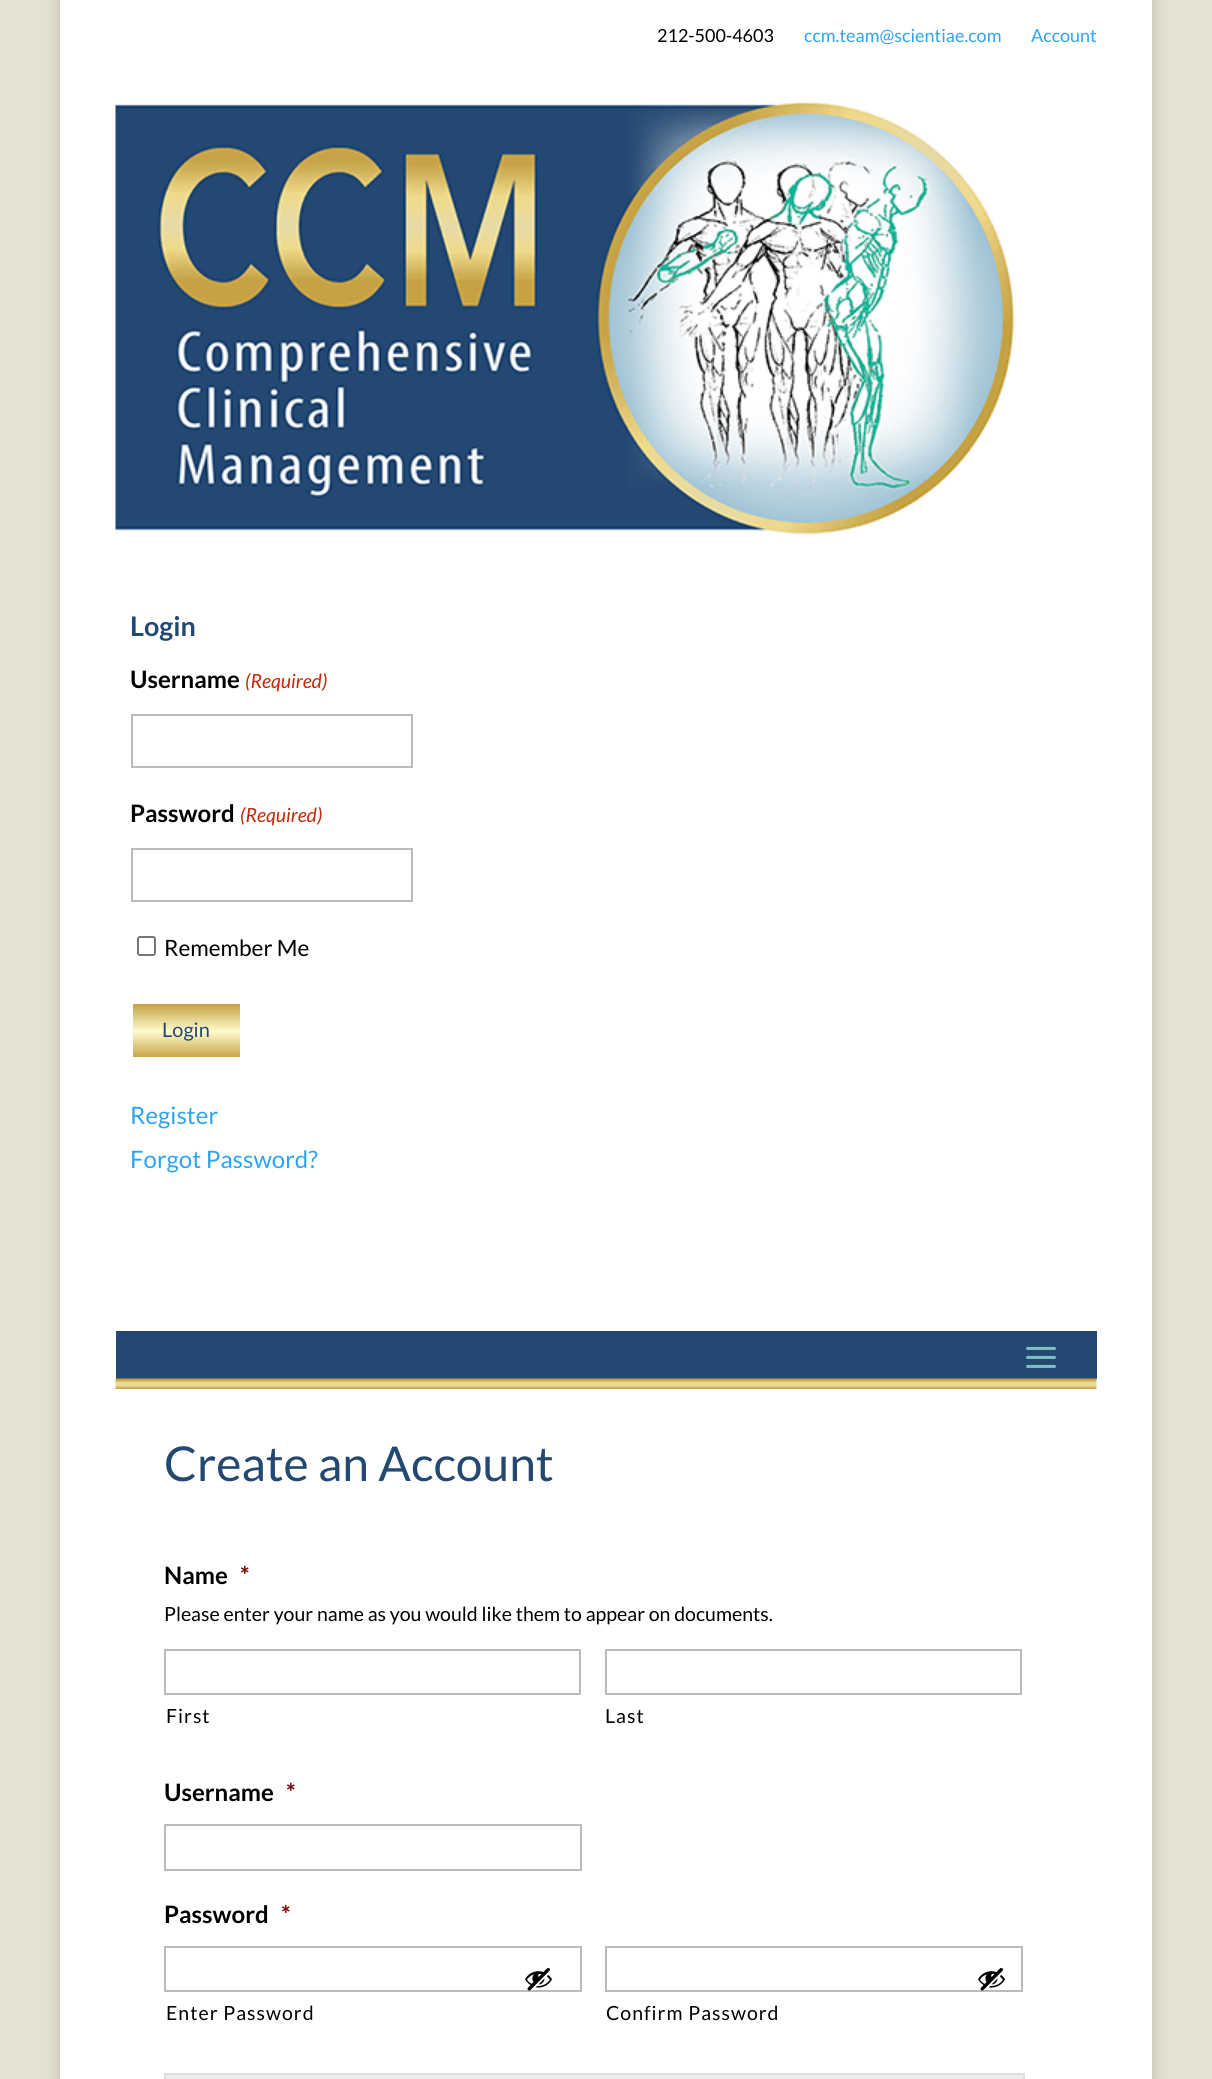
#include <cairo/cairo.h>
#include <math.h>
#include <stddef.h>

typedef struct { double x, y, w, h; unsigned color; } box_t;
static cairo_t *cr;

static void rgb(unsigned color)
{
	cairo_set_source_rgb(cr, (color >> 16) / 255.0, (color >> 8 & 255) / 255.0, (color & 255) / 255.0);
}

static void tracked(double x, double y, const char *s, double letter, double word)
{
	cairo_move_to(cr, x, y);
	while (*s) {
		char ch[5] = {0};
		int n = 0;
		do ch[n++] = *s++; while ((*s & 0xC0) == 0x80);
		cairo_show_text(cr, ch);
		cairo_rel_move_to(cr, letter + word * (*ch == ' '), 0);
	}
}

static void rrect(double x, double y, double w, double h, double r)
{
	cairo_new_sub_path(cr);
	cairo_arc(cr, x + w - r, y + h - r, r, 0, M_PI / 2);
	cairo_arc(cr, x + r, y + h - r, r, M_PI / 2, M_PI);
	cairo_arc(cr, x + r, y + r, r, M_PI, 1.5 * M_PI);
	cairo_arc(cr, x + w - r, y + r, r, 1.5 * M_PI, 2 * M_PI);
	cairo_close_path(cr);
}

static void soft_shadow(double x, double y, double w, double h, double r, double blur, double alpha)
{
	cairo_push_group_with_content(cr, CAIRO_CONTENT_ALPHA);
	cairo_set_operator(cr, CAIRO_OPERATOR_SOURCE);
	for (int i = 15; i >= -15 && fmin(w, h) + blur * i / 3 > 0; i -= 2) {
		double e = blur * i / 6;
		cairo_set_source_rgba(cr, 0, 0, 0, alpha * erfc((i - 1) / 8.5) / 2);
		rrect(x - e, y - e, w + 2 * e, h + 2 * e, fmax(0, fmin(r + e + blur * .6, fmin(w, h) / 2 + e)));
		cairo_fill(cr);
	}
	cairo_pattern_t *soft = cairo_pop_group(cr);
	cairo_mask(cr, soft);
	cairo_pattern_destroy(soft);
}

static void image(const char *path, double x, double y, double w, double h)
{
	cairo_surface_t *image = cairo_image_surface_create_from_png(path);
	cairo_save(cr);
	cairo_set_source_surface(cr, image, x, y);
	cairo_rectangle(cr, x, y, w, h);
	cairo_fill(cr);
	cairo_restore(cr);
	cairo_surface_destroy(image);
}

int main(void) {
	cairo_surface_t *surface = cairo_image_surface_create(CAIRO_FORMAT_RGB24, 1212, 2079);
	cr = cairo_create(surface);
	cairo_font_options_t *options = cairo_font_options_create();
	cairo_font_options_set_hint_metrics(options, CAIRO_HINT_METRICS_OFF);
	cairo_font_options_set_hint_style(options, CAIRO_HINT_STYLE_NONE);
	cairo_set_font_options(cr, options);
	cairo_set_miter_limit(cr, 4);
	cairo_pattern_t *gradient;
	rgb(0xe5e2d3);
	cairo_paint(cr);
	rgb(0x000000);
	soft_shadow(60, 0, 1092, 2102, 0, 7.5, 0.2);
	rgb(0xffffff);
	cairo_rectangle(cr, 60, 0, 1092, 2079);
	cairo_fill(cr);
	image("img/1.png", 115, 101, 900, 434);
	cairo_rectangle(cr, 132, 715, 280, 52);
	rgb(0xbbbbbb);
	cairo_stroke(cr);
	cairo_rectangle(cr, 132, 849, 280, 52);
	cairo_stroke(cr);
	rrect(138, 937, 17, 18, 2);
	rgb(0x767676);
	cairo_stroke(cr);
	gradient = cairo_pattern_create_linear(186, 1004, 186, 1058);
	cairo_pattern_add_color_stop_rgba(gradient, 0, 0.773, 0.635, 0.267, 1);
	cairo_pattern_add_color_stop_rgba(gradient, 0.5, 1, 0.984, 0.8, 1);
	cairo_pattern_add_color_stop_rgba(gradient, 0.51, 1, 0.984, 0.8, 1);
	cairo_pattern_add_color_stop_rgba(gradient, 1, 0.773, 0.635, 0.267, 1);
	cairo_set_source(cr, gradient);
	cairo_pattern_destroy(gradient);
	cairo_rectangle(cr, 133, 1004, 107, 53);
	cairo_fill(cr);
	rgb(0x234872);
	cairo_rectangle(cr, 116, 1331, 981, 48);
	cairo_fill(cr);
	image("img/2.png", 115, 1378, 982, 11);
	image("img/3.png", 1026, 1346, 30, 22);
	cairo_rectangle(cr, 165, 1650, 415, 44);
	rgb(0xbbbbbb);
	cairo_stroke(cr);
	cairo_rectangle(cr, 606, 1650, 415, 44);
	cairo_stroke(cr);
	cairo_rectangle(cr, 165, 1825, 416, 45);
	cairo_stroke(cr);
	cairo_rectangle(cr, 165, 1947, 416, 44);
	cairo_stroke(cr);
	image("img/4.png", 525, 1968, 28, 23);
	cairo_rectangle(cr, 606, 1947, 416, 44);
	cairo_stroke(cr);
	image("img/4.png", 978, 1968, 28, 23);
	{
		static const box_t items[] = {
			{165, 2075, 858, 4, 0xeeeeee},
			{164, 2073, 861, 2, 0xdddddd},
			{1023, 2073, 2, 6, 0xdddddd},
			{164, 2073, 2, 6, 0xdddddd},
		};
		for (size_t i = 0; i < sizeof items / sizeof *items; i++) {
			rgb(items[i].color);
			cairo_rectangle(cr, items[i].x, items[i].y, items[i].w, items[i].h);
			cairo_fill(cr);
		}
	}
	cairo_select_font_face(cr, "Lato", CAIRO_FONT_SLANT_NORMAL, CAIRO_FONT_WEIGHT_NORMAL);
	cairo_set_font_size(cr, 18);
	rgb(0x000000);
	cairo_move_to(cr, 657, 42);
	cairo_show_text(cr, "212-500-4603");
	rgb(0x2ea3f2);
	cairo_move_to(cr, 804, 42);
	cairo_show_text(cr, "ccm.team@scientiae.com");
	cairo_move_to(cr, 1031, 42);
	cairo_show_text(cr, "Account");
	cairo_select_font_face(cr, "Lato", CAIRO_FONT_SLANT_NORMAL, CAIRO_FONT_WEIGHT_BOLD);
	cairo_set_font_size(cr, 27);
	rgb(0x234872);
	cairo_move_to(cr, 130, 636);
	cairo_show_text(cr, "Login");
	cairo_set_font_size(cr, 24);
	rgb(0x000000);
	cairo_move_to(cr, 130, 688);
	cairo_show_text(cr, "Username");
	cairo_select_font_face(cr, "Lato", CAIRO_FONT_SLANT_ITALIC, CAIRO_FONT_WEIGHT_NORMAL);
	cairo_set_font_size(cr, 19.5);
	rgb(0xc02b0a);
	cairo_move_to(cr, 245, 688);
	cairo_show_text(cr, "(Required)");
	cairo_select_font_face(cr, "Lato", CAIRO_FONT_SLANT_NORMAL, CAIRO_FONT_WEIGHT_BOLD);
	cairo_set_font_size(cr, 24);
	rgb(0x000000);
	cairo_move_to(cr, 130, 822);
	cairo_show_text(cr, "Password");
	cairo_select_font_face(cr, "Lato", CAIRO_FONT_SLANT_ITALIC, CAIRO_FONT_WEIGHT_NORMAL);
	cairo_set_font_size(cr, 19.5);
	rgb(0xc02b0a);
	cairo_move_to(cr, 240, 822);
	cairo_show_text(cr, "(Required)");
	cairo_select_font_face(cr, "Lato", CAIRO_FONT_SLANT_NORMAL, CAIRO_FONT_WEIGHT_NORMAL);
	cairo_set_font_size(cr, 22.5);
	rgb(0x000000);
	cairo_move_to(cr, 164, 956);
	cairo_show_text(cr, "Remember Me");
	cairo_set_font_size(cr, 20);
	rgb(0x234872);
	cairo_move_to(cr, 162, 1037);
	cairo_show_text(cr, "Login");
	cairo_set_font_size(cr, 24);
	rgb(0x2ea3f2);
	cairo_move_to(cr, 130, 1124);
	cairo_show_text(cr, "Register");
	cairo_move_to(cr, 130, 1168);
	cairo_show_text(cr, "Forgot Password?");
	cairo_set_font_size(cr, 48);
	rgb(0x234872);
	cairo_move_to(cr, 164, 1481);
	cairo_show_text(cr, "Create an Account");
	cairo_select_font_face(cr, "Lato", CAIRO_FONT_SLANT_NORMAL, CAIRO_FONT_WEIGHT_BOLD);
	cairo_set_font_size(cr, 24);
	rgb(0x000000);
	cairo_move_to(cr, 164, 1584);
	cairo_show_text(cr, "Name");
	rgb(0x790000);
	cairo_move_to(cr, 240, 1584);
	cairo_show_text(cr, "*");
	cairo_select_font_face(cr, "Lato", CAIRO_FONT_SLANT_NORMAL, CAIRO_FONT_WEIGHT_NORMAL);
	cairo_set_font_size(cr, 19.5);
	rgb(0x000000);
	cairo_move_to(cr, 164, 1621);
	cairo_show_text(cr, "Please enter your name as you would like them to appear on documents.");
	tracked(166, 1723, "First", 1, 0);
	tracked(605, 1723, "Last", 1, 0);
	cairo_select_font_face(cr, "Lato", CAIRO_FONT_SLANT_NORMAL, CAIRO_FONT_WEIGHT_BOLD);
	cairo_set_font_size(cr, 24);
	cairo_move_to(cr, 164, 1801);
	cairo_show_text(cr, "Username");
	rgb(0x790000);
	cairo_move_to(cr, 286, 1801);
	cairo_show_text(cr, "*");
	rgb(0x000000);
	cairo_move_to(cr, 164, 1923);
	cairo_show_text(cr, "Password");
	rgb(0x790000);
	cairo_move_to(cr, 281, 1923);
	cairo_show_text(cr, "*");
	cairo_select_font_face(cr, "Lato", CAIRO_FONT_SLANT_NORMAL, CAIRO_FONT_WEIGHT_NORMAL);
	cairo_set_font_size(cr, 19.5);
	rgb(0x000000);
	tracked(166, 2020, "Enter Password", 1, 0);
	tracked(606, 2020, "Confirm Password", 1, 0);
	cairo_surface_write_to_png(surface, "page.png");
	cairo_font_options_destroy(options);
	cairo_destroy(cr);
	cairo_surface_destroy(surface);
	return 0;
}
